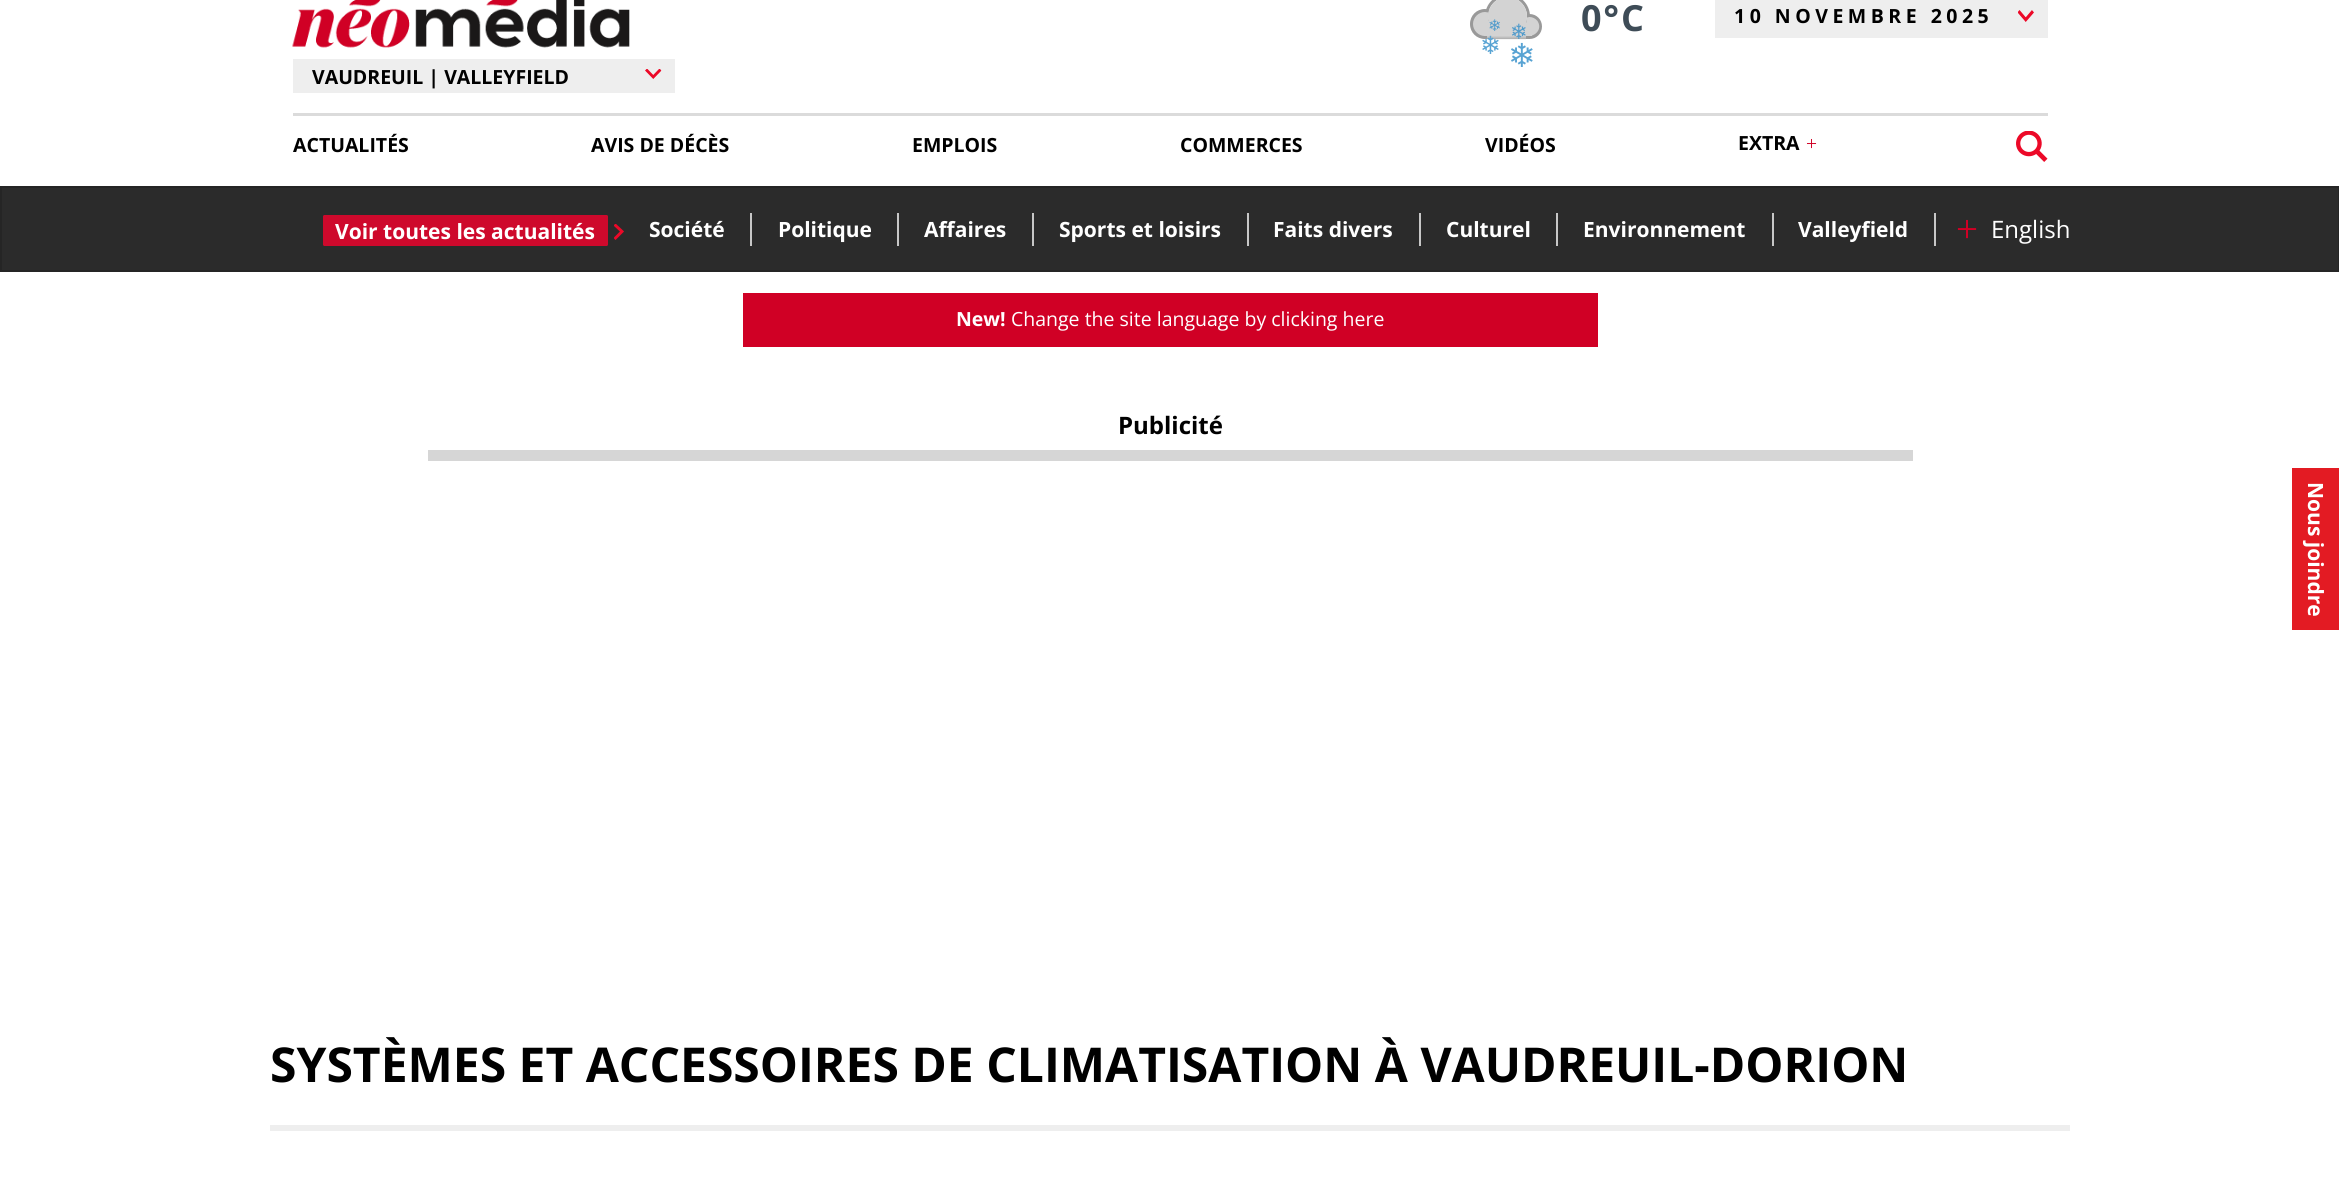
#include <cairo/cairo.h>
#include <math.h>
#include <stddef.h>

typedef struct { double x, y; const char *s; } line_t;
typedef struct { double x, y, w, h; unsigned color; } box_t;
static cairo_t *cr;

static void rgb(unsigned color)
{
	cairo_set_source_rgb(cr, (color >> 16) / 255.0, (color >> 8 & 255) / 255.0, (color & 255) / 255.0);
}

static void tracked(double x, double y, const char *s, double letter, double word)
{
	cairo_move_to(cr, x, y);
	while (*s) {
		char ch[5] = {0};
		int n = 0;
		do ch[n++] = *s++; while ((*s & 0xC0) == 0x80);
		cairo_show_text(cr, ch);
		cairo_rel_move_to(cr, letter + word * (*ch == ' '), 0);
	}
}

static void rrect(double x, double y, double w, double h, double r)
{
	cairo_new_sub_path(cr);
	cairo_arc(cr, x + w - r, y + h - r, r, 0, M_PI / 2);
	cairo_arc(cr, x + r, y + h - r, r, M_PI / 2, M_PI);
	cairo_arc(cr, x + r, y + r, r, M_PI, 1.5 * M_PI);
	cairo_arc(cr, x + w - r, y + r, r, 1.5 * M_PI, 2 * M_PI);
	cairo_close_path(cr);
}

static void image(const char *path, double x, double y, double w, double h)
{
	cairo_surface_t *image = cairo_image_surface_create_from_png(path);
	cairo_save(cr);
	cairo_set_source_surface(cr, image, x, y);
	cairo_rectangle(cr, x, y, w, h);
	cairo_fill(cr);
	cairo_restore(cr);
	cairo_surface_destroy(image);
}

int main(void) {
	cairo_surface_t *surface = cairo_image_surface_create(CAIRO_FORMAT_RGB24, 2339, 1195);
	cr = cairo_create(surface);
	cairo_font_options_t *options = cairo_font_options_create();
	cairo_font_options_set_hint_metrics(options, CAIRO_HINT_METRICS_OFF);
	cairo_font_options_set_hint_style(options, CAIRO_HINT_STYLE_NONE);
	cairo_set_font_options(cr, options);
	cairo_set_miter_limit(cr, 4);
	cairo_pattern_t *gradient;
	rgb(0xffffff);
	cairo_paint(cr);
	rgb(0x999999);
	cairo_new_path(cr);
	cairo_move_to(cr, 1529.5, 14);
	cairo_line_to(cr, 1527, 14.5);
	cairo_curve_to(cr, 1527.5, 21.5, 1524.5, 28.5, 1518.5, 32.5);
	cairo_curve_to(cr, 1520.5, 36.5, 1525, 39, 1529.5, 39);
	cairo_curve_to(cr, 1536.5, 39, 1542, 33.5, 1542, 26.5);
	cairo_curve_to(cr, 1542, 19.5, 1536.5, 14, 1529.5, 14);
	cairo_close_path(cr);
	cairo_fill(cr);
	cairo_new_path(cr);
	cairo_move_to(cr, 1485, 9);
	cairo_curve_to(cr, 1476.5, 9, 1470, 15.5, 1470, 24);
	cairo_curve_to(cr, 1470, 32.5, 1476.5, 39, 1485, 39);
	cairo_curve_to(cr, 1490, 39, 1494.5, 36.5, 1497, 33);
	cairo_curve_to(cr, 1489.5, 28, 1486, 18, 1489.5, 9.5);
	cairo_close_path(cr);
	cairo_fill(cr);
	cairo_arc(cr, 1507.5, 16.5, 21, 0, 2 * M_PI);
	cairo_set_line_width(cr, 3);
	cairo_stroke(cr);
	rgb(0xd3d3d3);
	cairo_new_path(cr);
	cairo_move_to(cr, 1529.5, 17);
	cairo_line_to(cr, 1527, 17.5);
	cairo_curve_to(cr, 1527, 22.5, 1524.5, 27.5, 1521, 30.5);
	cairo_curve_to(cr, 1526.5, 42.5, 1545, 32.5, 1537.5, 21);
	cairo_curve_to(cr, 1535.5, 18.5, 1532.5, 17, 1529.5, 17);
	cairo_close_path(cr);
	cairo_fill(cr);
	cairo_new_path(cr);
	cairo_move_to(cr, 1485, 12);
	cairo_curve_to(cr, 1478.5, 12, 1473, 17.5, 1473, 24);
	cairo_curve_to(cr, 1473, 30.5, 1478.5, 36, 1485, 36);
	cairo_curve_to(cr, 1489, 36, 1492.5, 34, 1494.5, 31);
	cairo_curve_to(cr, 1489.5, 26.5, 1487, 19.5, 1488.5, 12.5);
	cairo_close_path(cr);
	cairo_fill(cr);
	cairo_arc(cr, 1507.5, 16.5, 19.5, 0, 2 * M_PI);
	cairo_fill(cr);
	rgb(0x999999);
	cairo_rectangle(cr, 1485, 36, 45, 3);
	cairo_fill(cr);
	rgb(0xd3d3d3);
	cairo_rectangle(cr, 1484, 26, 48, 10);
	cairo_fill(cr);
	gradient = cairo_pattern_create_linear(1506, 21, 1506, 60);
	cairo_pattern_add_color_stop_rgba(gradient, 0, 0.827, 0.827, 0.827, 1);
	cairo_pattern_add_color_stop_rgba(gradient, 0.38, 0.827, 0.827, 0.827, 1);
	cairo_pattern_add_color_stop_rgba(gradient, 0.5, 0.827, 0.827, 0.827, 0);
	cairo_pattern_add_color_stop_rgba(gradient, 0.62, 0, 0, 0, 0);
	cairo_pattern_add_color_stop_rgba(gradient, 1, 0, 0, 0, 0);
	cairo_set_source(cr, gradient);
	cairo_pattern_destroy(gradient);
	cairo_rectangle(cr, 1487, 21, 39, 19);
	cairo_fill(cr);
	rgb(0xeeeeee);
	cairo_rectangle(cr, 1715, 0, 333, 38);
	cairo_fill(cr);
	image("img/1.png", 2018, 10, 16, 12);
	image("img/2.png", 292, 0, 338, 48);
	cairo_rectangle(cr, 293, 59, 382, 34);
	cairo_fill(cr);
	image("img/3.png", 645, 69, 17, 10);
	rgb(0xdbdbdb);
	cairo_rectangle(cr, 293, 113, 1755, 3);
	cairo_fill(cr);
	image("img/4.png", 2016, 131, 32, 31);
	rgb(0x2b2b2b);
	cairo_rectangle(cr, 1, 187, 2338, 84);
	cairo_fill_preserve(cr);
	rgb(0x252525);
	cairo_set_line_width(cr, 2);
	cairo_stroke(cr);
	rgb(0xce092c);
	rrect(323, 215, 285, 31, 1.5);
	cairo_fill(cr);
	cairo_save(cr);
	cairo_rectangle(cr, 614, 224, 10, 16);
	cairo_clip(cr);
	cairo_new_path(cr);
	cairo_move_to(cr, 614.5, 239);
	cairo_line_to(cr, 622, 231.5);
	cairo_line_to(cr, 614.5, 224.5);
	rgb(0xec0928);
	cairo_set_line_width(cr, 2.9);
	cairo_stroke(cr);
	cairo_restore(cr);
	{
		static const box_t items[] = {
			{750, 213, 2, 33, 0xc7c7c7},
			{897, 213, 2, 33, 0xc7c7c7},
			{1032, 213, 2, 33, 0xc7c7c7},
			{1247, 213, 2, 33, 0xc7c7c7},
			{1419, 213, 2, 33, 0xc7c7c7},
			{1556, 213, 2, 33, 0xc7c7c7},
			{1772, 213, 2, 33, 0xc7c7c7},
			{1934, 213, 2, 33, 0xc7c7c7},
			{743, 293, 855, 54, 0xd00025},
			{428, 450, 1485, 11, 0xd6d6d6},
			{270, 1125, 1800, 6, 0xeeeeee},
			{2292, 468, 47, 162, 0xe31b23},
		};
		for (size_t i = 0; i < sizeof items / sizeof *items; i++) {
			rgb(items[i].color);
			cairo_rectangle(cr, items[i].x, items[i].y, items[i].w, items[i].h);
			cairo_fill(cr);
		}
	}
	cairo_select_font_face(cr, "DejaVu Sans", CAIRO_FONT_SLANT_NORMAL, CAIRO_FONT_WEIGHT_NORMAL);
	cairo_set_font_size(cr, 16);
	rgb(0x519bcb);
	cairo_move_to(cr, 1488, 31);
	cairo_show_text(cr, "❄");
	cairo_set_font_size(cr, 25);
	rgb(0x58a3d3);
	cairo_move_to(cr, 1480, 54);
	cairo_show_text(cr, "❄");
	cairo_set_font_size(cr, 21);
	rgb(0x519bcb);
	cairo_move_to(cr, 1510, 39);
	cairo_show_text(cr, "❄");
	cairo_set_font_size(cr, 33);
	rgb(0x58a3d3);
	cairo_move_to(cr, 1508, 67);
	cairo_show_text(cr, "❄");
	cairo_select_font_face(cr, "Open Sans", CAIRO_FONT_SLANT_NORMAL, CAIRO_FONT_WEIGHT_BOLD);
	cairo_set_font_size(cr, 36);
	rgb(0x3e4c57);
	tracked(1581, 31, "0°C", 2, 0);
	cairo_set_font_size(cr, 19.5);
	rgb(0x000000);
	tracked(1734, 23, "10 NOVEMBRE 2025", 4.5, 0);
	cairo_move_to(cr, 312, 84);
	cairo_show_text(cr, "VAUDREUIL | VALLEYFIELD");
	cairo_move_to(cr, 293, 152);
	cairo_show_text(cr, "ACTUALITÉS");
	cairo_set_font_size(cr, 21);
	rgb(0xffffff);
	{
		static const line_t items[] = {
			{335, 239, "Voir toutes les actualités"},
			{649, 237, "Société"},
			{778, 237, "Politique"},
			{924, 237, "Affaires"},
			{1059, 237, "Sports et loisirs"},
			{1273, 237, "Faits divers"},
			{1446, 237, "Culturel"},
			{1583, 237, "Environnement"},
			{1798, 237, "Valleyfield"},
		};
		for (size_t i = 0; i < sizeof items / sizeof *items; i++) {
			cairo_move_to(cr, items[i].x, items[i].y);
			cairo_show_text(cr, items[i].s);
		}
	}
	cairo_select_font_face(cr, "Liberation Serif", CAIRO_FONT_SLANT_NORMAL, CAIRO_FONT_WEIGHT_NORMAL);
	cairo_set_font_size(cr, 39);
	rgb(0xd00025);
	cairo_move_to(cr, 1956, 242);
	cairo_show_text(cr, "+");
	cairo_select_font_face(cr, "Open Sans", CAIRO_FONT_SLANT_NORMAL, CAIRO_FONT_WEIGHT_NORMAL);
	cairo_set_font_size(cr, 24);
	rgb(0xffffff);
	cairo_move_to(cr, 1991, 238);
	cairo_show_text(cr, "English");
	cairo_select_font_face(cr, "Open Sans", CAIRO_FONT_SLANT_NORMAL, CAIRO_FONT_WEIGHT_BOLD);
	cairo_set_font_size(cr, 19.5);
	rgb(0x000000);
	{
		static const line_t items[] = {
			{591, 152, "AVIS DE DÉCÈS"},
			{912, 152, "EMPLOIS"},
			{1180, 152, "COMMERCES"},
			{1485, 152, "VIDÉOS"},
			{1738, 150, "EXTRA"},
		};
		for (size_t i = 0; i < sizeof items / sizeof *items; i++) {
			cairo_move_to(cr, items[i].x, items[i].y);
			cairo_show_text(cr, items[i].s);
		}
	}
	cairo_select_font_face(cr, "Liberation Serif", CAIRO_FONT_SLANT_NORMAL, CAIRO_FONT_WEIGHT_NORMAL);
	rgb(0xd00025);
	cairo_move_to(cr, 1806, 150);
	cairo_show_text(cr, "+");
	cairo_select_font_face(cr, "Open Sans", CAIRO_FONT_SLANT_NORMAL, CAIRO_FONT_WEIGHT_BOLD);
	rgb(0xffffff);
	cairo_move_to(cr, 956, 326);
	cairo_show_text(cr, "New!");
	cairo_select_font_face(cr, "Open Sans", CAIRO_FONT_SLANT_NORMAL, CAIRO_FONT_WEIGHT_NORMAL);
	cairo_move_to(cr, 1011, 326);
	cairo_show_text(cr, "Change the site language by clicking here");
	cairo_select_font_face(cr, "Open Sans", CAIRO_FONT_SLANT_NORMAL, CAIRO_FONT_WEIGHT_BOLD);
	cairo_set_font_size(cr, 24);
	rgb(0x000000);
	cairo_move_to(cr, 1118, 434);
	cairo_show_text(cr, "Publicité");
	cairo_set_font_size(cr, 48);
	cairo_move_to(cr, 270, 1082);
	cairo_show_text(cr, "SYSTÈMES ET ACCESSOIRES DE CLIMATISATION À VAUDREUIL-DORION");
	cairo_set_font_size(cr, 21);
	rgb(0xffffff);
	cairo_save(cr);
	cairo_translate(cr, 2308, 482);
	cairo_rotate(cr, 90 * M_PI / 180);
	cairo_move_to(cr, 0, 0);
	cairo_show_text(cr, "Nous joindre");
	cairo_restore(cr);
	cairo_surface_write_to_png(surface, "page.png");
	cairo_font_options_destroy(options);
	cairo_destroy(cr);
	cairo_surface_destroy(surface);
	return 0;
}
